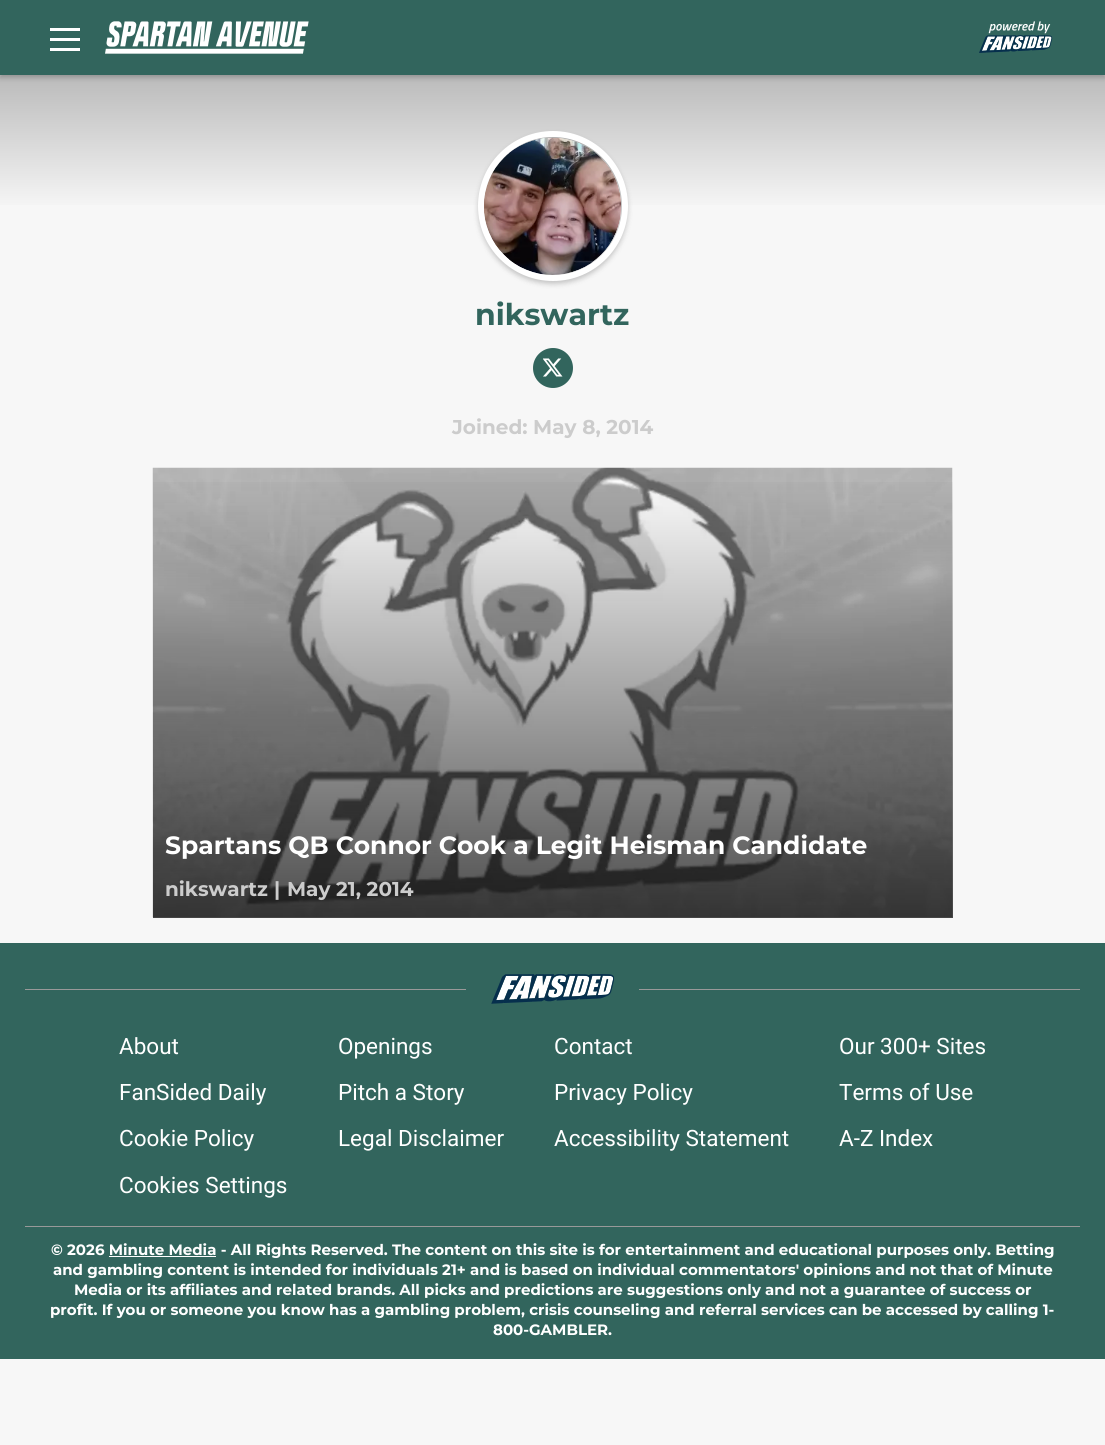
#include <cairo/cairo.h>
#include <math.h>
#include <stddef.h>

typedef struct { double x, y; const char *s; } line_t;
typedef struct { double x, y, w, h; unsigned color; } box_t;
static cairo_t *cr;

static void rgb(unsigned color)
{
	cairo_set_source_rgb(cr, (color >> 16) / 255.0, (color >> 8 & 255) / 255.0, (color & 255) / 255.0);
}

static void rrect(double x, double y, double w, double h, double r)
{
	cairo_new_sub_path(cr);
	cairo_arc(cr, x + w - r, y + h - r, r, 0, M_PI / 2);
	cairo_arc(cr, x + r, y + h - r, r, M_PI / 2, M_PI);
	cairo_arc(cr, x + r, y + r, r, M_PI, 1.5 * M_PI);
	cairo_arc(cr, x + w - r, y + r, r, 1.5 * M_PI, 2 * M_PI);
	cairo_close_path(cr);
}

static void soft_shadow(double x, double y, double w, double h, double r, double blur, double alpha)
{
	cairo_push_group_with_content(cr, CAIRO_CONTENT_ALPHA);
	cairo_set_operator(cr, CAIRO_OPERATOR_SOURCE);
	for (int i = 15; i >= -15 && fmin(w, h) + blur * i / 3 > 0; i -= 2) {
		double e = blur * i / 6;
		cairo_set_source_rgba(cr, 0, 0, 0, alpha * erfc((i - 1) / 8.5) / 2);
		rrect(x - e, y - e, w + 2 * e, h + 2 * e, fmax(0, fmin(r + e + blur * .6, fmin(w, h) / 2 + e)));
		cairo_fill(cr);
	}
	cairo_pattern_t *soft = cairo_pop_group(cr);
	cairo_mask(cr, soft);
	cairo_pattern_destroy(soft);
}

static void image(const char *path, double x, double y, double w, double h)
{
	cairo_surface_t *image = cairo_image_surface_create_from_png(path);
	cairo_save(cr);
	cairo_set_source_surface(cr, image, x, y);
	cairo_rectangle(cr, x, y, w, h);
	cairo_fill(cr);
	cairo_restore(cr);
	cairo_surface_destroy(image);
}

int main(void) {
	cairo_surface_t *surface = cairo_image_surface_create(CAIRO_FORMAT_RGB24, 1105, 1445);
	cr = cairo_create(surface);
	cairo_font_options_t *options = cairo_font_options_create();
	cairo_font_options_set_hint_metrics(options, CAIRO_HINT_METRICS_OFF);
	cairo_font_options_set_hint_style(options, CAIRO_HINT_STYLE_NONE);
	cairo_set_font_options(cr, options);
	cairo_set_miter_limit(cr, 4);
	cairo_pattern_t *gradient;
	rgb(0xf7f7f7);
	cairo_paint(cr);
	gradient = cairo_pattern_create_linear(553, 213, 553, 0);
	cairo_pattern_add_color_stop_rgba(gradient, 0, 0.973, 0.973, 0.973, 1);
	cairo_pattern_add_color_stop_rgba(gradient, 1, 0.6, 0.6, 0.6, 1);
	cairo_set_source(cr, gradient);
	cairo_pattern_destroy(gradient);
	cairo_rectangle(cr, 0, 75, 1105, 130);
	cairo_fill(cr);
	rgb(0x000000);
	soft_shadow(0, 3, 1105, 75, 0, 2.5, 0.2);
	{
		static const box_t items[] = {
			{0, 0, 1105, 75, 0x32655d},
			{50, 28, 30, 3, 0xffffff},
			{50, 38, 30, 3, 0xffffff},
			{50, 48, 30, 3, 0xffffff},
		};
		for (size_t i = 0; i < sizeof items / sizeof *items; i++) {
			rgb(items[i].color);
			cairo_rectangle(cr, items[i].x, items[i].y, items[i].w, items[i].h);
			cairo_fill(cr);
		}
	}
	image("img/1.png", 105, 21, 204, 33);
	image("img/2.png", 979, 21, 74, 32);
	rgb(0x000000);
	soft_shadow(478, 134, 150, 150, 75, 2.5, 0.2);
	cairo_arc(cr, 553, 206, 72, 0, 2 * M_PI);
	rgb(0xffffff);
	cairo_set_line_width(cr, 6);
	cairo_stroke(cr);
	rgb(0xf7f7f7);
	cairo_arc(cr, 552.5, 206.5, 68.5, 0, 2 * M_PI);
	cairo_fill(cr);
	image("img/3.png", 484, 137, 137, 138);
	rgb(0x32655d);
	cairo_arc(cr, 553, 368, 20, 0, 2 * M_PI);
	cairo_fill(cr);
	image("img/4.png", 543, 358, 20, 19);
	image("img/5.png", 152, 467, 801, 451);
	gradient = cairo_pattern_create_linear(553, 918, 553, 468);
	cairo_pattern_add_color_stop_rgba(gradient, 0, 0, 0, 0, 0.7);
	cairo_pattern_add_color_stop_rgba(gradient, 1, 0, 0, 0, 0);
	cairo_set_source(cr, gradient);
	cairo_pattern_destroy(gradient);
	cairo_rectangle(cr, 153, 482, 800, 436);
	cairo_fill(cr);
	rgb(0x32655d);
	cairo_rectangle(cr, 0, 943, 1105, 416);
	cairo_fill(cr);
	rgb(0x999999);
	cairo_rectangle(cr, 25, 989, 441, 1);
	cairo_fill(cr);
	image("img/6.png", 491, 974, 123, 30);
	{
		static const box_t items[] = {
			{639, 989, 441, 1, 0x999999},
			{25, 1226, 1055, 1, 0x999999},
			{109, 1256, 107, 1, 0xffffff},
		};
		for (size_t i = 0; i < sizeof items / sizeof *items; i++) {
			rgb(items[i].color);
			cairo_rectangle(cr, items[i].x, items[i].y, items[i].w, items[i].h);
			cairo_fill(cr);
		}
	}
	cairo_select_font_face(cr, "Montserrat", CAIRO_FONT_SLANT_NORMAL, CAIRO_FONT_WEIGHT_BOLD);
	cairo_set_font_size(cr, 30);
	rgb(0x32655d);
	cairo_move_to(cr, 475, 325);
	cairo_show_text(cr, "nikswartz");
	cairo_set_font_size(cr, 20);
	rgb(0xcccccc);
	cairo_move_to(cr, 452, 434);
	cairo_show_text(cr, "Joined: May 8, 2014");
	cairo_set_font_size(cr, 25);
	rgb(0xffffff);
	cairo_move_to(cr, 165, 854);
	cairo_show_text(cr, "Spartans QB Connor Cook a Legit Heisman Candidate");
	cairo_set_font_size(cr, 20);
	rgb(0xcccccc);
	{
		static const line_t items[] = {
			{165, 896, "nikswartz"},
			{274, 896, "|"},
			{287, 896, "May 21, 2014"},
		};
		for (size_t i = 0; i < sizeof items / sizeof *items; i++) {
			cairo_move_to(cr, items[i].x, items[i].y);
			cairo_show_text(cr, items[i].s);
		}
	}
	cairo_select_font_face(cr, "Roboto", CAIRO_FONT_SLANT_NORMAL, CAIRO_FONT_WEIGHT_NORMAL);
	cairo_set_font_size(cr, 22.5);
	rgb(0xffffff);
	{
		static const line_t items[] = {
			{119, 1054, "About"},
			{338, 1054, "Openings"},
			{554, 1054, "Contact"},
			{839, 1054, "Our 300+ Sites"},
			{119, 1100, "FanSided Daily"},
			{338, 1100, "Pitch a Story"},
			{554, 1100, "Privacy Policy"},
			{839, 1100, "Terms of Use"},
			{119, 1146, "Cookie Policy"},
			{338, 1146, "Legal Disclaimer"},
			{554, 1146, "Accessibility Statement"},
			{839, 1146, "A-Z Index"},
			{119, 1193, "Cookies Settings"},
		};
		for (size_t i = 0; i < sizeof items / sizeof *items; i++) {
			cairo_move_to(cr, items[i].x, items[i].y);
			cairo_show_text(cr, items[i].s);
		}
	}
	cairo_select_font_face(cr, "Montserrat", CAIRO_FONT_SLANT_NORMAL, CAIRO_FONT_WEIGHT_BOLD);
	cairo_set_font_size(cr, 15);
	{
		static const line_t items[] = {
			{51, 1255, "© 2026 Minute Media - All Rights Reserved. The content on this site is for entertainment and educational purposes only. Betting"},
			{53, 1275, "and gambling content is intended for individuals 21+ and is based on individual commentators' opinions and not that of Minute"},
			{74, 1295, "Media or its affiliates and related brands. All picks and predictions are suggestions only and not a guarantee of success or"},
			{50, 1315, "profit. If you or someone you know has a gambling problem, crisis counseling and referral services can be accessed by calling 1-"},
			{493, 1335, "800-GAMBLER."},
		};
		for (size_t i = 0; i < sizeof items / sizeof *items; i++) {
			cairo_move_to(cr, items[i].x, items[i].y);
			cairo_show_text(cr, items[i].s);
		}
	}
	cairo_surface_write_to_png(surface, "page.png");
	cairo_font_options_destroy(options);
	cairo_destroy(cr);
	cairo_surface_destroy(surface);
	return 0;
}
